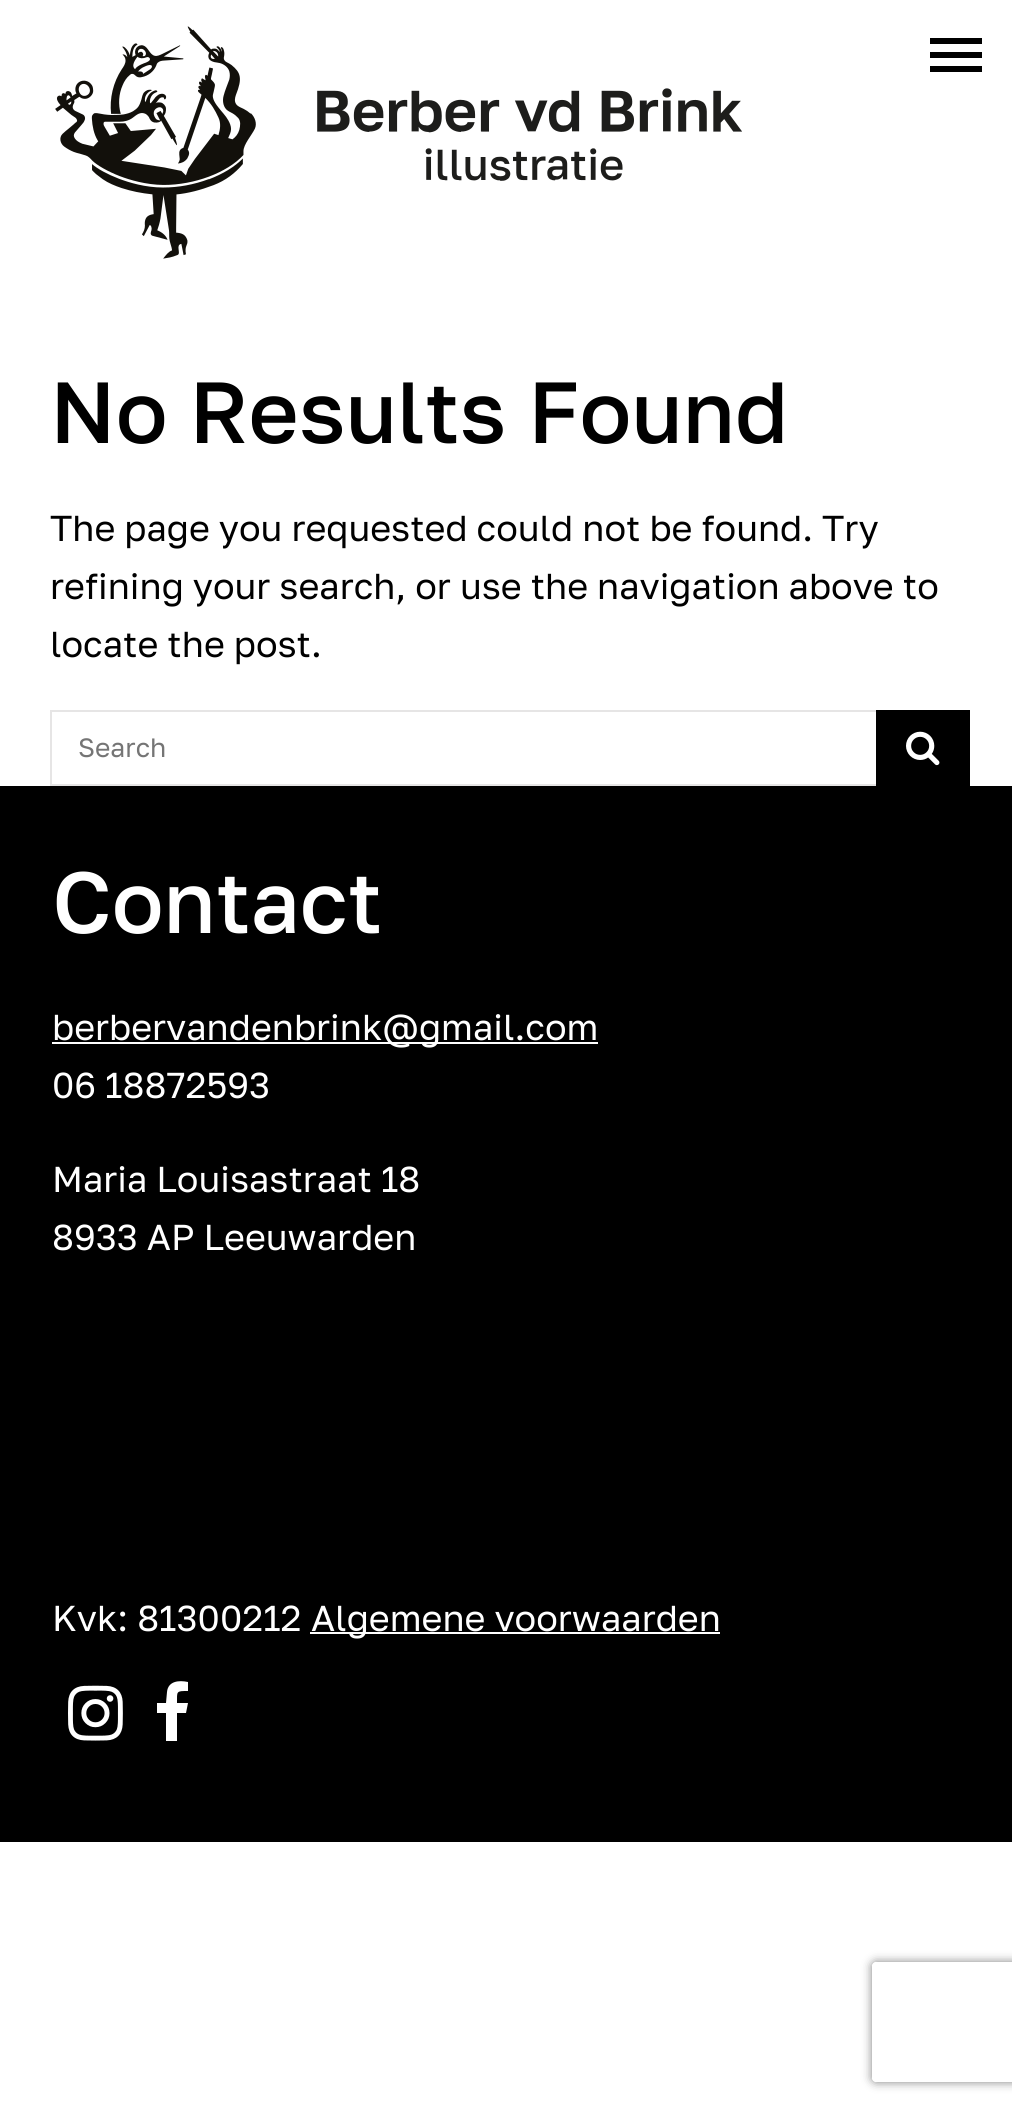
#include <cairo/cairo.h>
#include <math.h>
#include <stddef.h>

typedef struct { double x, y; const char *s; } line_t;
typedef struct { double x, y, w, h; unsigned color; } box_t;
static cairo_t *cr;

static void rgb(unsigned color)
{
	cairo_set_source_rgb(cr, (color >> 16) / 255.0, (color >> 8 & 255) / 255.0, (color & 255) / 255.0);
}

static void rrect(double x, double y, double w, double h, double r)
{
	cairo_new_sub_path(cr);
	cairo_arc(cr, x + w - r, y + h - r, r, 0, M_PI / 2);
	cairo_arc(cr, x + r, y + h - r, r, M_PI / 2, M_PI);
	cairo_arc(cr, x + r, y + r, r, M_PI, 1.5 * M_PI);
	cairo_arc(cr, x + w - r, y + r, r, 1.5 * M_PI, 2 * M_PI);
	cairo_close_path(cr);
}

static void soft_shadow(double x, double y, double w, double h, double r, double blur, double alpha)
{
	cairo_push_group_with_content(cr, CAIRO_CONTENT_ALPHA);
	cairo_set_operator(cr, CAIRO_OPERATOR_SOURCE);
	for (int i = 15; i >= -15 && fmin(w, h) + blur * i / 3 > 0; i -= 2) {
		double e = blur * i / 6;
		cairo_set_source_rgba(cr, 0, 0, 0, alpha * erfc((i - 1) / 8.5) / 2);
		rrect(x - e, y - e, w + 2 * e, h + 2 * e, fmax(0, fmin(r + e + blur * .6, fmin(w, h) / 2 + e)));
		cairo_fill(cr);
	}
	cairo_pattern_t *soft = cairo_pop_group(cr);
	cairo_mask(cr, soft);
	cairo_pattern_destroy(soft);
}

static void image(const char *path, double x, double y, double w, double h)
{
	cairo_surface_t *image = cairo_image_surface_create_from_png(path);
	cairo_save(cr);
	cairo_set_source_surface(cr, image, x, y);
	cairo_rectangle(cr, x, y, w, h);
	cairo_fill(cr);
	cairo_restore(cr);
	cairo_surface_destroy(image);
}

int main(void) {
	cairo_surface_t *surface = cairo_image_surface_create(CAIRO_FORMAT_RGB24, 1012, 2109);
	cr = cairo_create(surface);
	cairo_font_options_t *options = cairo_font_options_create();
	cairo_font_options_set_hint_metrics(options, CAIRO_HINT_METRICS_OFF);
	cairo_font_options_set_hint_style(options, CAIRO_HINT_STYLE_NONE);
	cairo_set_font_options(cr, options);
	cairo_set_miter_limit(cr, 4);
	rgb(0xffffff);
	cairo_paint(cr);
	image("img/1.png", 55, 26, 201, 233);
	image("img/2.png", 317, 88, 425, 93);
	{
		static const box_t items[] = {
			{930, 38, 52, 6, 0x000000},
			{930, 52, 52, 6, 0x000000},
			{930, 66, 52, 6, 0x000000},
			{50, 710, 826, 2, 0xe6e5e5},
			{50, 784, 826, 2, 0xe6e5e5},
			{50, 710, 2, 76, 0xe6e5e5},
			{876, 710, 94, 76, 0x000000},
		};
		for (size_t i = 0; i < sizeof items / sizeof *items; i++) {
			rgb(items[i].color);
			cairo_rectangle(cr, items[i].x, items[i].y, items[i].w, items[i].h);
			cairo_fill(cr);
		}
	}
	image("img/3.png", 906, 731, 34, 35);
	{
		static const box_t items[] = {
			{0, 786, 1012, 1056, 0x000000},
			{52, 1042, 546, 2, 0xffffff},
			{310, 1632, 410, 2, 0xffffff},
		};
		for (size_t i = 0; i < sizeof items / sizeof *items; i++) {
			rgb(items[i].color);
			cairo_rectangle(cr, items[i].x, items[i].y, items[i].w, items[i].h);
			cairo_fill(cr);
		}
	}
	image("img/4.png", 68, 1685, 55, 56);
	cairo_new_path(cr);
	cairo_move_to(cr, 188, 1682);
	cairo_line_to(cr, 188, 1691);
	cairo_curve_to(cr, 176, 1691, 177, 1691, 177, 1703);
	cairo_line_to(cr, 188, 1703);
	cairo_line_to(cr, 186, 1713);
	cairo_line_to(cr, 177, 1713);
	cairo_line_to(cr, 177, 1741);
	cairo_line_to(cr, 166, 1741);
	cairo_line_to(cr, 166, 1713);
	cairo_line_to(cr, 157, 1713);
	cairo_line_to(cr, 157, 1703);
	cairo_line_to(cr, 166, 1703);
	cairo_line_to(cr, 167, 1692);
	cairo_curve_to(cr, 168, 1681, 179, 1680, 188, 1682);
	cairo_close_path(cr);
	cairo_fill(cr);
	cairo_save(cr);
	cairo_set_fill_rule(cr, CAIRO_FILL_RULE_EVEN_ODD);
	cairo_new_path(cr);
	cairo_move_to(cr, 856, 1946);
	cairo_line_to(cr, 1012, 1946);
	cairo_line_to(cr, 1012, 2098);
	cairo_line_to(cr, 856, 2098);
	cairo_close_path(cr);
	cairo_move_to(cr, 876, 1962);
	cairo_line_to(cr, 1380, 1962);
	cairo_curve_to(cr, 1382, 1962, 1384, 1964, 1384, 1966);
	cairo_line_to(cr, 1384, 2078);
	cairo_curve_to(cr, 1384, 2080, 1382, 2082, 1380, 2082);
	cairo_line_to(cr, 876, 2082);
	cairo_curve_to(cr, 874, 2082, 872, 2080, 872, 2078);
	cairo_line_to(cr, 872, 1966);
	cairo_curve_to(cr, 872, 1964, 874, 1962, 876, 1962);
	cairo_close_path(cr);
	cairo_clip(cr);
	rgb(0x808080);
	soft_shadow(872, 1962, 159, 120, 4, 5, 1);
	cairo_restore(cr);
	cairo_select_font_face(cr, "Golos Text Medium", CAIRO_FONT_SLANT_NORMAL, CAIRO_FONT_WEIGHT_NORMAL);
	cairo_set_font_size(cr, 86.5);
	rgb(0x000000);
	cairo_move_to(cr, 50, 443);
	cairo_show_text(cr, "No Results Found");
	cairo_select_font_face(cr, "Golos Text", CAIRO_FONT_SLANT_NORMAL, CAIRO_FONT_WEIGHT_NORMAL);
	cairo_set_font_size(cr, 36);
	{
		static const line_t items[] = {
			{50, 541, "The page you requested could not be found. Try"},
			{50, 599, "refining your search, or use the navigation above to"},
			{50, 657, "locate the post."},
		};
		for (size_t i = 0; i < sizeof items / sizeof *items; i++) {
			cairo_move_to(cr, items[i].x, items[i].y);
			cairo_show_text(cr, items[i].s);
		}
	}
	cairo_set_font_size(cr, 26.5);
	rgb(0x757575);
	cairo_move_to(cr, 78, 757);
	cairo_show_text(cr, "Search");
	cairo_select_font_face(cr, "Golos Text Medium", CAIRO_FONT_SLANT_NORMAL, CAIRO_FONT_WEIGHT_NORMAL);
	cairo_set_font_size(cr, 86.5);
	rgb(0xffffff);
	cairo_move_to(cr, 52, 933);
	cairo_show_text(cr, "Contact");
	cairo_select_font_face(cr, "Golos Text", CAIRO_FONT_SLANT_NORMAL, CAIRO_FONT_WEIGHT_NORMAL);
	cairo_set_font_size(cr, 36);
	{
		static const line_t items[] = {
			{52, 1040, "berbervandenbrink@gmail.com"},
			{52, 1098, "06 18872593"},
			{52, 1192, "Maria Louisastraat 18"},
			{52, 1250, "8933 AP Leeuwarden"},
			{52, 1631, "Kvk: 81300212"},
			{311, 1631, "Algemene voorwaarden"},
		};
		for (size_t i = 0; i < sizeof items / sizeof *items; i++) {
			cairo_move_to(cr, items[i].x, items[i].y);
			cairo_show_text(cr, items[i].s);
		}
	}
	cairo_surface_write_to_png(surface, "page.png");
	cairo_font_options_destroy(options);
	cairo_destroy(cr);
	cairo_surface_destroy(surface);
	return 0;
}
